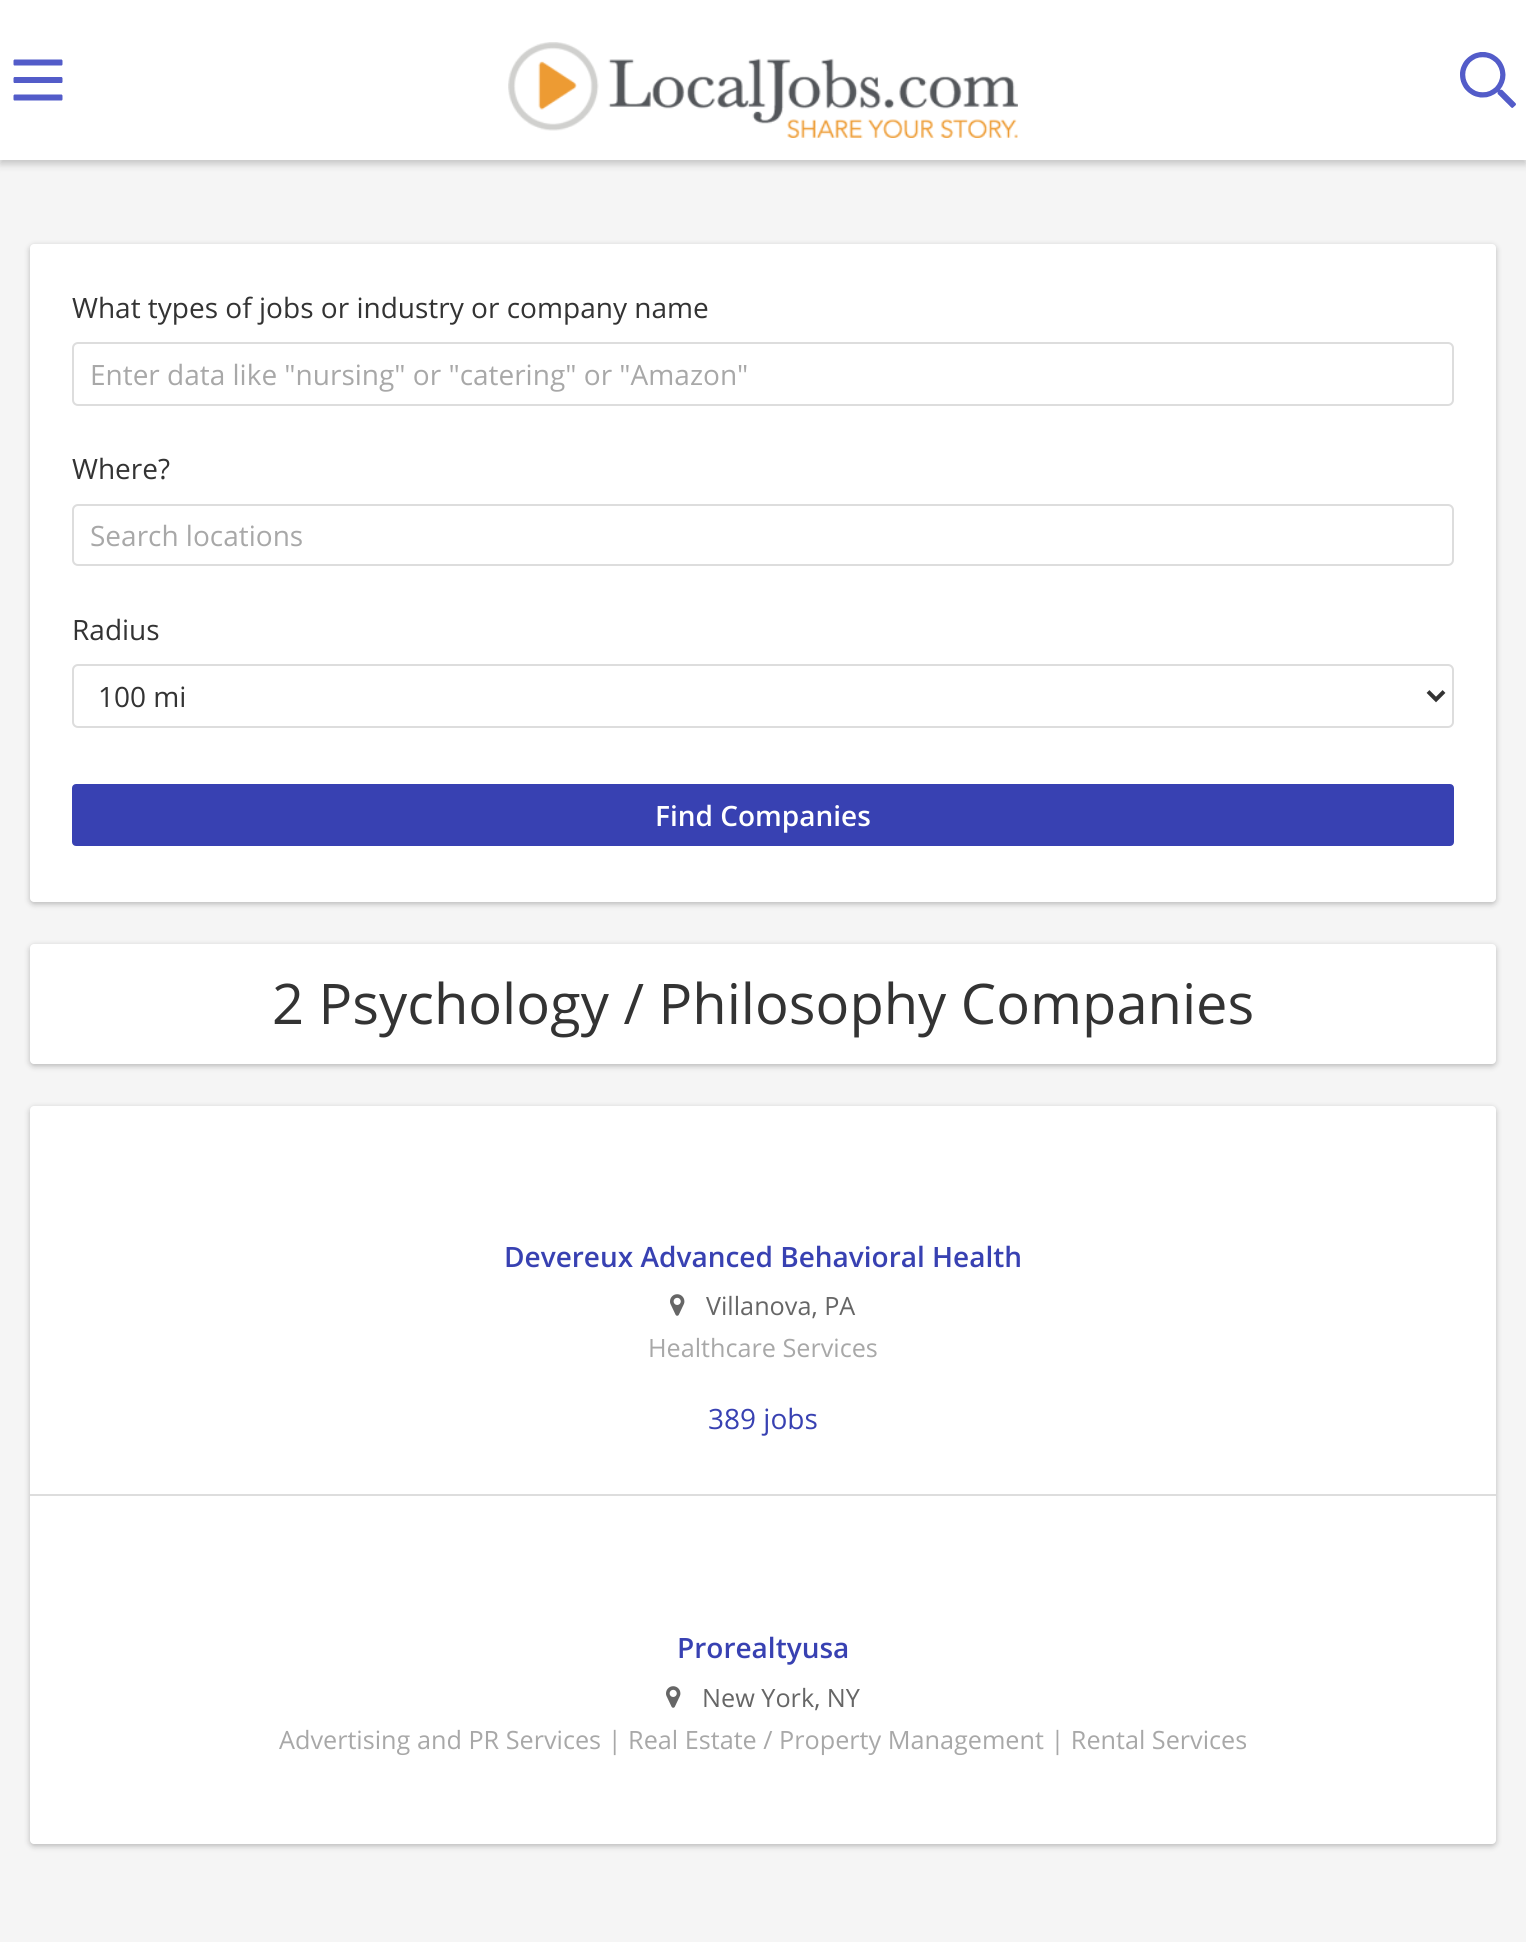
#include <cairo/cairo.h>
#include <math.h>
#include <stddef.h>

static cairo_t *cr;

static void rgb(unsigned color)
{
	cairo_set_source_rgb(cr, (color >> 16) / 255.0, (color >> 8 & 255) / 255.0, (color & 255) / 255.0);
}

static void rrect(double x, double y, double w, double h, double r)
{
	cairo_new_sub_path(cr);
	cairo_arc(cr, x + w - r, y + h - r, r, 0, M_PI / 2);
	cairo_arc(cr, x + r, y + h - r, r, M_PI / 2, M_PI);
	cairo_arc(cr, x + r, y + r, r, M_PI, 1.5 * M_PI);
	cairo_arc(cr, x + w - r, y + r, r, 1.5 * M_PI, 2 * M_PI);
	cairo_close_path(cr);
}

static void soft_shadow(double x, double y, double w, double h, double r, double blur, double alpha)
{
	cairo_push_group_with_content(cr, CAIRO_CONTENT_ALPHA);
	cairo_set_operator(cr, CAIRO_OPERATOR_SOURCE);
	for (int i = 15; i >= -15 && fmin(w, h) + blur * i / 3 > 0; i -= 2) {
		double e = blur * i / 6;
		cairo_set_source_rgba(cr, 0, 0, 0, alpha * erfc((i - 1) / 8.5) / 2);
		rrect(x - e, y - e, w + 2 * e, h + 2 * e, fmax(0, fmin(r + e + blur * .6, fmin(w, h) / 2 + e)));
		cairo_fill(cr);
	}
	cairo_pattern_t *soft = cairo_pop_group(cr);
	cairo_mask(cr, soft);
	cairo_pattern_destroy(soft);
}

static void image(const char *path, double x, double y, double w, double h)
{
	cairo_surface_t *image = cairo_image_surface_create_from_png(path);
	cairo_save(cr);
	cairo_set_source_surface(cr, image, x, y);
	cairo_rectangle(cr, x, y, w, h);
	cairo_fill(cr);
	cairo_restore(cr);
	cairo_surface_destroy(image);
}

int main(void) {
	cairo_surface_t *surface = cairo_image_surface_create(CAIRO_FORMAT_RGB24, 1526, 1942);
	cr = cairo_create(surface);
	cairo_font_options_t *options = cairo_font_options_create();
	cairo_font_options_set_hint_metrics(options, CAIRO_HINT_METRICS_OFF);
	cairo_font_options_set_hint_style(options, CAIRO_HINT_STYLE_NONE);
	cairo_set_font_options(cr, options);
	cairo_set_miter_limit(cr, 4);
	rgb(0xf5f5f5);
	cairo_paint(cr);
	rgb(0x919191);
	soft_shadow(0, 4, 1526, 160, 0, 4, 0.5);
	rgb(0xffffff);
	cairo_rectangle(cr, 0, 0, 1526, 160);
	cairo_fill(cr);
	image("img/1.png", 13, 59, 50, 42);
	image("img/2.png", 508, 42, 510, 96);
	image("img/3.png", 1460, 52, 56, 56);
	rgb(0x000000);
	soft_shadow(30, 246, 1466, 658, 4, 3, 0.25);
	rgb(0xffffff);
	rrect(30, 244, 1466, 658, 4);
	cairo_fill(cr);
	rrect(73, 343, 1380, 62, 5);
	rgb(0xdddddd);
	cairo_stroke(cr);
	rrect(73, 505, 1380, 60, 5);
	cairo_stroke(cr);
	rrect(73, 665, 1380, 62, 5);
	cairo_stroke(cr);
	cairo_new_path(cr);
	cairo_move_to(cr, 1428, 691.5);
	cairo_line_to(cr, 1436, 699.5);
	cairo_line_to(cr, 1444, 691.5);
	rgb(0x333333);
	cairo_set_line_width(cr, 4);
	cairo_stroke(cr);
	rgb(0x3841b2);
	rrect(73, 785, 1380, 60, 3);
	cairo_fill_preserve(cr);
	cairo_set_line_width(cr, 2);
	cairo_stroke(cr);
	rgb(0x000000);
	soft_shadow(30, 946, 1466, 120, 4, 3, 0.25);
	rgb(0xffffff);
	rrect(30, 944, 1466, 120, 4);
	cairo_fill(cr);
	rgb(0x000000);
	soft_shadow(30, 1108, 1466, 738, 4, 3, 0.25);
	rgb(0xffffff);
	rrect(30, 1106, 1466, 738, 4);
	cairo_fill(cr);
	image("img/4.png", 670, 1294, 15, 22);
	rgb(0xdddddd);
	cairo_rectangle(cr, 30, 1494, 1466, 2);
	cairo_fill(cr);
	image("img/4.png", 666, 1686, 15, 22);
	cairo_select_font_face(cr, "Open Sans", CAIRO_FONT_SLANT_NORMAL, CAIRO_FONT_WEIGHT_NORMAL);
	cairo_set_font_size(cr, 28);
	rgb(0x333333);
	cairo_move_to(cr, 72, 318);
	cairo_show_text(cr, "What types of jobs or industry or company name");
	rgb(0xa8a8a8);
	cairo_move_to(cr, 90, 385);
	cairo_show_text(cr, "Enter data like \"nursing\" or \"catering\" or \"Amazon\"");
	rgb(0x333333);
	cairo_move_to(cr, 72, 479);
	cairo_show_text(cr, "Where?");
	rgb(0xa8a8a8);
	cairo_move_to(cr, 90, 546);
	cairo_show_text(cr, "Search locations");
	rgb(0x333333);
	cairo_move_to(cr, 72, 640);
	cairo_show_text(cr, "Radius");
	cairo_move_to(cr, 98, 707);
	cairo_show_text(cr, "100 mi");
	cairo_select_font_face(cr, "Open Sans SemiBold", CAIRO_FONT_SLANT_NORMAL, CAIRO_FONT_WEIGHT_NORMAL);
	rgb(0xffffff);
	cairo_move_to(cr, 655, 826);
	cairo_show_text(cr, "Find Companies");
	cairo_select_font_face(cr, "Open Sans", CAIRO_FONT_SLANT_NORMAL, CAIRO_FONT_WEIGHT_NORMAL);
	cairo_set_font_size(cr, 56);
	rgb(0x333333);
	cairo_move_to(cr, 272, 1024);
	cairo_show_text(cr, "2 Psychology / Philosophy Companies");
	cairo_select_font_face(cr, "Open Sans SemiBold", CAIRO_FONT_SLANT_NORMAL, CAIRO_FONT_WEIGHT_NORMAL);
	cairo_set_font_size(cr, 28);
	rgb(0x3841b2);
	cairo_move_to(cr, 504, 1267);
	cairo_show_text(cr, "Devereux Advanced Behavioral Health");
	cairo_select_font_face(cr, "Open Sans", CAIRO_FONT_SLANT_NORMAL, CAIRO_FONT_WEIGHT_NORMAL);
	cairo_set_font_size(cr, 25.2);
	rgb(0x666666);
	cairo_move_to(cr, 706, 1315);
	cairo_show_text(cr, "Villanova, PA");
	rgb(0xa8a8a8);
	cairo_move_to(cr, 648, 1357);
	cairo_show_text(cr, "Healthcare Services");
	cairo_set_font_size(cr, 28);
	rgb(0x3841b2);
	cairo_move_to(cr, 708, 1429);
	cairo_show_text(cr, "389 jobs");
	cairo_select_font_face(cr, "Open Sans SemiBold", CAIRO_FONT_SLANT_NORMAL, CAIRO_FONT_WEIGHT_NORMAL);
	cairo_move_to(cr, 677, 1658);
	cairo_show_text(cr, "Prorealtyusa");
	cairo_select_font_face(cr, "Open Sans", CAIRO_FONT_SLANT_NORMAL, CAIRO_FONT_WEIGHT_NORMAL);
	cairo_set_font_size(cr, 25.2);
	rgb(0x666666);
	cairo_move_to(cr, 702, 1707);
	cairo_show_text(cr, "New York, NY");
	rgb(0xa8a8a8);
	cairo_move_to(cr, 279, 1749);
	cairo_show_text(cr, "Advertising and PR Services | Real Estate / Property Management | Rental Services");
	cairo_surface_write_to_png(surface, "page.png");
	cairo_font_options_destroy(options);
	cairo_destroy(cr);
	cairo_surface_destroy(surface);
	return 0;
}
